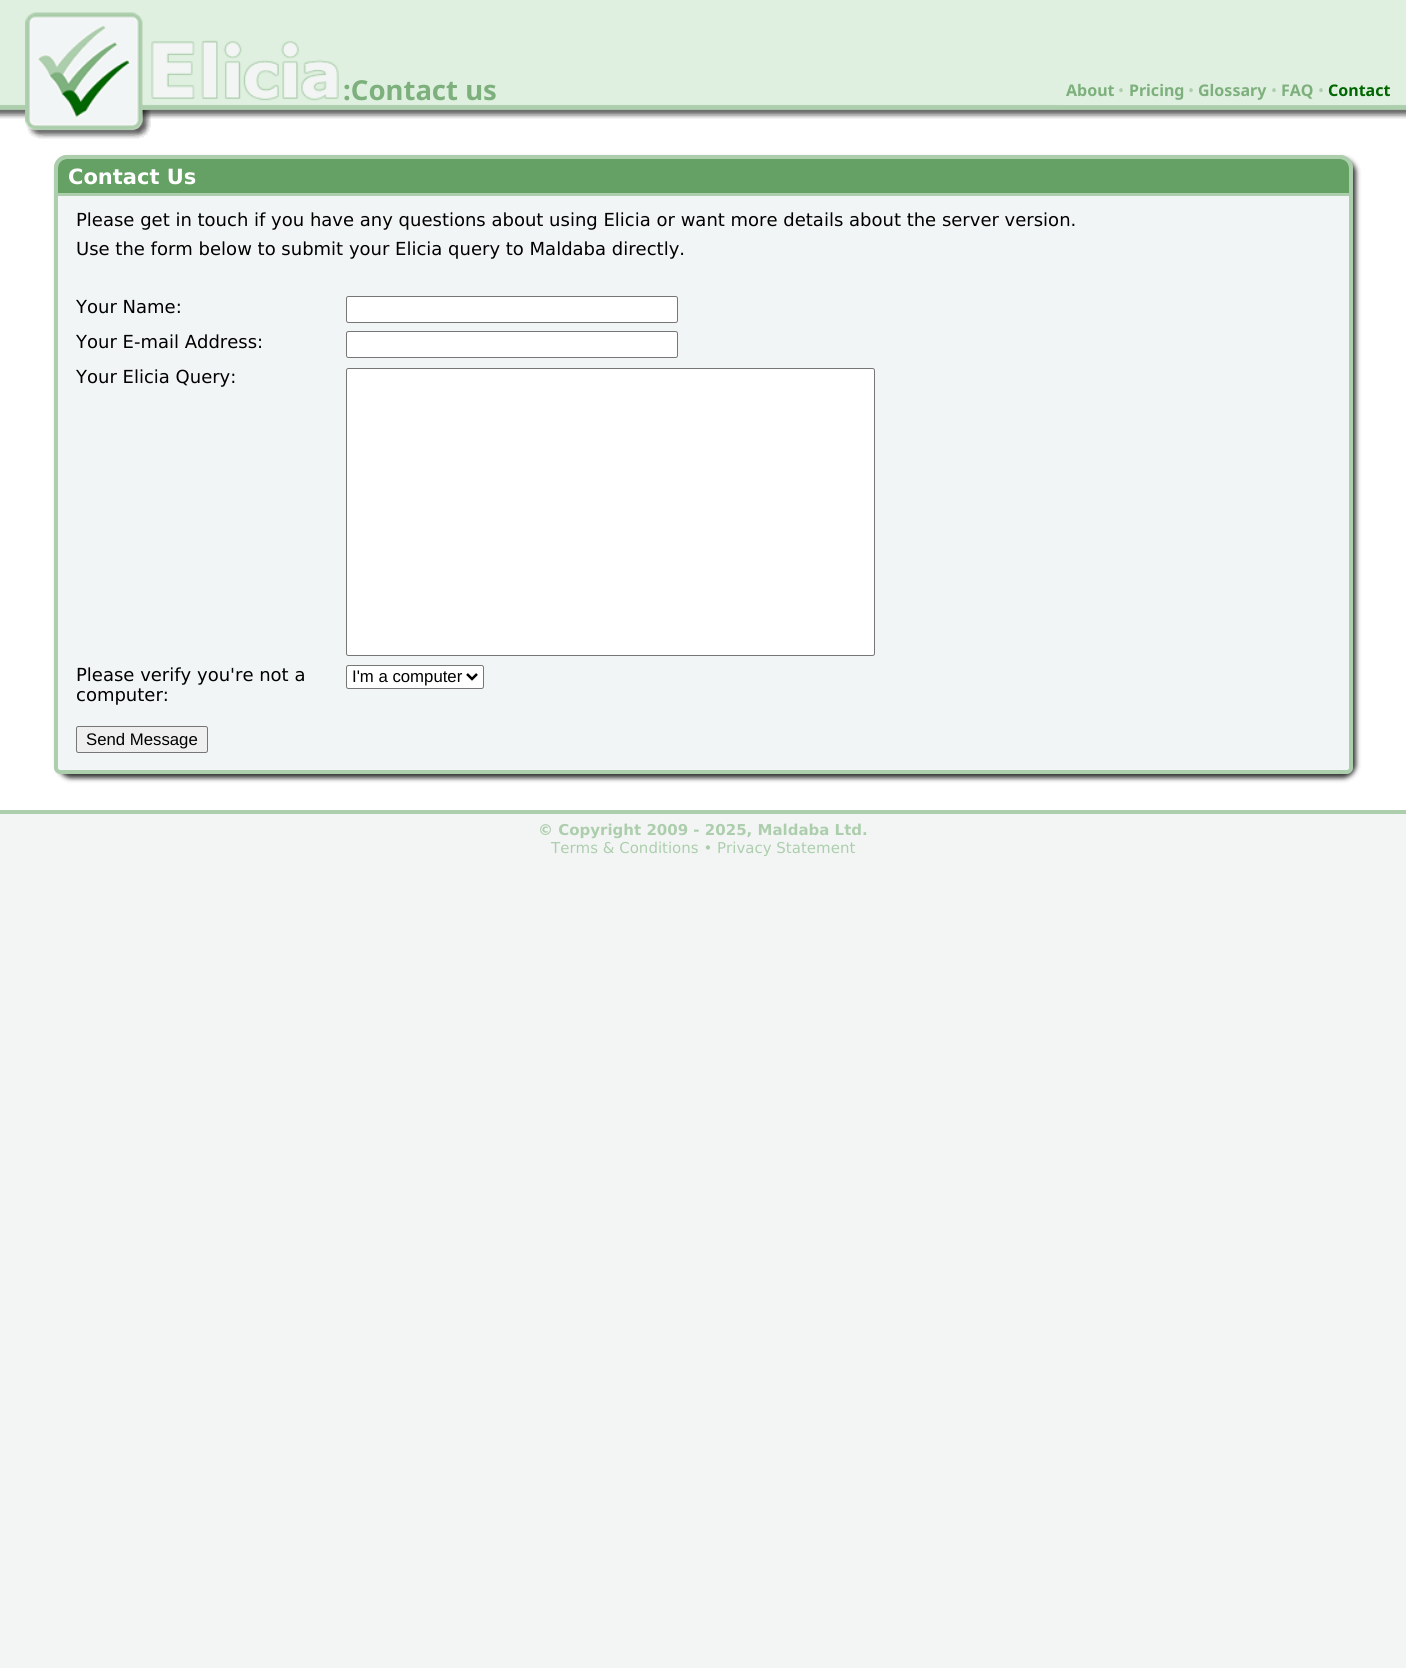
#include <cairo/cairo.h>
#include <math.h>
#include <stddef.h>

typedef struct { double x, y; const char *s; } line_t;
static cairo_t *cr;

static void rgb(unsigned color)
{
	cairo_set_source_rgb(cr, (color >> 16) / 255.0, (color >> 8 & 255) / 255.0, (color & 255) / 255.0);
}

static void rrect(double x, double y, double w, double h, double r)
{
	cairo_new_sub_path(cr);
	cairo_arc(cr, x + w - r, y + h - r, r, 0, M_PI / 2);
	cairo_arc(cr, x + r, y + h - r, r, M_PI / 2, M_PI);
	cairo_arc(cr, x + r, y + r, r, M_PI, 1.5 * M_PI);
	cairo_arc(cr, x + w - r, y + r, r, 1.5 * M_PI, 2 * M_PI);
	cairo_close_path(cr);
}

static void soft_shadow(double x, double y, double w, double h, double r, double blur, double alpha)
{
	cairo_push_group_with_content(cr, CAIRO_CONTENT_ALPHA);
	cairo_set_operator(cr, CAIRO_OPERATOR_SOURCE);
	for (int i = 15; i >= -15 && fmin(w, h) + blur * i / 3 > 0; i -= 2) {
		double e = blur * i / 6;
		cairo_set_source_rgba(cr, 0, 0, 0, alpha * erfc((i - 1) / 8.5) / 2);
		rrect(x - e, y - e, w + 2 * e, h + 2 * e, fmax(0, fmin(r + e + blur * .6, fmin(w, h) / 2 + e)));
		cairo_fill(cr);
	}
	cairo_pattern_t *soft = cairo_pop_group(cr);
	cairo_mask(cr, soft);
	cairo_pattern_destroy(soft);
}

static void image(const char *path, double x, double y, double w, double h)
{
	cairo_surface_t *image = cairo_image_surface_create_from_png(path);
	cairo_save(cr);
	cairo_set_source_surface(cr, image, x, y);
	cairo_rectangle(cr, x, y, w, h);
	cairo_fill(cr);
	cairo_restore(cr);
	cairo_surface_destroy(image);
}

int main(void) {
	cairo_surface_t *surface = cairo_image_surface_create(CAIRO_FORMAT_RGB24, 1406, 1668);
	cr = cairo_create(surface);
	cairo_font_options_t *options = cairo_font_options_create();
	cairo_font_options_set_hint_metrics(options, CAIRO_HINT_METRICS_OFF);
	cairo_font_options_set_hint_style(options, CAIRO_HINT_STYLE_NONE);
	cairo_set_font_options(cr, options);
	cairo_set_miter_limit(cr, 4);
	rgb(0xf3f5f5);
	cairo_paint(cr);
	rgb(0xffffff);
	cairo_rectangle(cr, 0, 110, 1406, 700);
	cairo_fill(cr);
	image("img/1.png", 0, 0, 1406, 119);
	image("img/2.png", 26, 110, 125, 29);
	image("img/3.png", 25, 12, 118, 118);
	image("img/4.png", 151, 40, 188, 61);
	rgb(0xe0f0e0);
	cairo_rectangle(cr, 1058, 104, 332, 1);
	cairo_fill(cr);
	rgb(0x333333);
	soft_shadow(58, 159, 1298, 619, 13, 2.5, 1);
	rgb(0xf2f5f5);
	cairo_new_path(cr);
	cairo_move_to(cr, 67, 157);
	cairo_line_to(cr, 1340, 157);
	cairo_curve_to(cr, 1346, 157, 1351, 162, 1351, 168);
	cairo_line_to(cr, 1351, 768);
	cairo_curve_to(cr, 1351, 770, 1349, 772, 1347, 772);
	cairo_line_to(cr, 60, 772);
	cairo_curve_to(cr, 58, 772, 56, 770, 56, 768);
	cairo_line_to(cr, 56, 168);
	cairo_curve_to(cr, 56, 162, 61, 157, 67, 157);
	cairo_close_path(cr);
	cairo_fill_preserve(cr);
	rgb(0xadcead);
	cairo_set_line_width(cr, 4);
	cairo_stroke(cr);
	rgb(0x65a065);
	cairo_new_path(cr);
	cairo_move_to(cr, 67, 159);
	cairo_line_to(cr, 1340, 159);
	cairo_curve_to(cr, 1345, 159, 1349, 163, 1349, 168);
	cairo_line_to(cr, 1349, 194);
	cairo_line_to(cr, 58, 194);
	cairo_line_to(cr, 58, 168);
	cairo_curve_to(cr, 58, 163, 62, 159, 67, 159);
	cairo_close_path(cr);
	cairo_fill(cr);
	cairo_new_path(cr);
	cairo_move_to(cr, 67, 156.5);
	cairo_line_to(cr, 1340, 156.5);
	cairo_curve_to(cr, 1346.5, 156.5, 1351.5, 161.5, 1351.5, 168);
	cairo_line_to(cr, 1351.5, 194.5);
	cairo_line_to(cr, 55.5, 194.5);
	cairo_line_to(cr, 55.5, 168);
	cairo_curve_to(cr, 55.5, 161.5, 60.5, 156.5, 67, 156.5);
	cairo_close_path(cr);
	rgb(0xadcead);
	cairo_set_line_width(cr, 3);
	cairo_stroke(cr);
	rgb(0xffffff);
	rrect(346.5, 296.5, 331, 26, 2);
	cairo_fill_preserve(cr);
	rgb(0x767676);
	cairo_set_line_width(cr, 1);
	cairo_stroke(cr);
	rgb(0xffffff);
	rrect(346.5, 331.5, 331, 26, 2);
	cairo_fill_preserve(cr);
	rgb(0x767676);
	cairo_stroke(cr);
	rgb(0xffffff);
	rrect(346.5, 368.5, 528, 287, 2);
	cairo_fill_preserve(cr);
	rgb(0x767676);
	cairo_stroke(cr);
	rgb(0xffffff);
	rrect(346.5, 665.5, 137, 23, 2);
	cairo_fill_preserve(cr);
	rgb(0x767676);
	cairo_stroke(cr);
	cairo_new_path(cr);
	cairo_move_to(cr, 467, 674);
	cairo_line_to(cr, 472, 679);
	cairo_line_to(cr, 477, 674);
	rgb(0x000000);
	cairo_set_line_width(cr, 2.5);
	cairo_stroke(cr);
	rgb(0xefefef);
	rrect(76.5, 726.5, 131, 26, 2);
	cairo_fill_preserve(cr);
	rgb(0x767676);
	cairo_set_line_width(cr, 1);
	cairo_stroke(cr);
	rgb(0xadcead);
	cairo_rectangle(cr, 0, 810, 1406, 4);
	cairo_fill(cr);
	cairo_select_font_face(cr, "Noto Sans", CAIRO_FONT_SLANT_NORMAL, CAIRO_FONT_WEIGHT_BOLD);
	cairo_set_font_size(cr, 27.5);
	rgb(0x7db07d);
	cairo_move_to(cr, 343, 100);
	cairo_show_text(cr, ":Contact us");
	cairo_set_font_size(cr, 16);
	cairo_move_to(cr, 1066, 96);
	cairo_show_text(cr, "About");
	cairo_select_font_face(cr, "Noto Sans", CAIRO_FONT_SLANT_NORMAL, CAIRO_FONT_WEIGHT_NORMAL);
	rgb(0xadcead);
	cairo_move_to(cr, 1118, 96);
	cairo_show_text(cr, "•");
	cairo_select_font_face(cr, "Noto Sans", CAIRO_FONT_SLANT_NORMAL, CAIRO_FONT_WEIGHT_BOLD);
	rgb(0x7db07d);
	cairo_move_to(cr, 1129, 96);
	cairo_show_text(cr, "Pricing");
	cairo_select_font_face(cr, "Noto Sans", CAIRO_FONT_SLANT_NORMAL, CAIRO_FONT_WEIGHT_NORMAL);
	rgb(0xadcead);
	cairo_move_to(cr, 1188, 96);
	cairo_show_text(cr, "•");
	cairo_select_font_face(cr, "Noto Sans", CAIRO_FONT_SLANT_NORMAL, CAIRO_FONT_WEIGHT_BOLD);
	rgb(0x7db07d);
	cairo_move_to(cr, 1198, 96);
	cairo_show_text(cr, "Glossary");
	cairo_select_font_face(cr, "Noto Sans", CAIRO_FONT_SLANT_NORMAL, CAIRO_FONT_WEIGHT_NORMAL);
	rgb(0xadcead);
	cairo_move_to(cr, 1271, 96);
	cairo_show_text(cr, "•");
	cairo_select_font_face(cr, "Noto Sans", CAIRO_FONT_SLANT_NORMAL, CAIRO_FONT_WEIGHT_BOLD);
	rgb(0x7db07d);
	cairo_move_to(cr, 1281, 96);
	cairo_show_text(cr, "FAQ");
	cairo_select_font_face(cr, "Noto Sans", CAIRO_FONT_SLANT_NORMAL, CAIRO_FONT_WEIGHT_NORMAL);
	rgb(0xadcead);
	cairo_move_to(cr, 1318, 96);
	cairo_show_text(cr, "•");
	cairo_select_font_face(cr, "Noto Sans", CAIRO_FONT_SLANT_NORMAL, CAIRO_FONT_WEIGHT_BOLD);
	rgb(0x006600);
	cairo_move_to(cr, 1328, 96);
	cairo_show_text(cr, "Contact");
	cairo_select_font_face(cr, "DejaVu Sans", CAIRO_FONT_SLANT_NORMAL, CAIRO_FONT_WEIGHT_BOLD);
	cairo_set_font_size(cr, 21);
	rgb(0xffffff);
	cairo_move_to(cr, 68, 184);
	cairo_show_text(cr, "Contact Us");
	cairo_select_font_face(cr, "DejaVu Sans", CAIRO_FONT_SLANT_NORMAL, CAIRO_FONT_WEIGHT_NORMAL);
	cairo_set_font_size(cr, 18);
	rgb(0x000000);
	{
		static const line_t items[] = {
			{76, 226, "Please get in touch if you have any questions about using Elicia or want more details about the server version."},
			{76, 255, "Use the form below to submit your Elicia query to Maldaba directly."},
			{76, 313, "Your Name:"},
			{76, 348, "Your E-mail Address:"},
			{76, 383, "Your Elicia Query:"},
			{76, 681, "Please verify you're not a"},
			{76, 701, "computer:"},
		};
		for (size_t i = 0; i < sizeof items / sizeof *items; i++) {
			cairo_move_to(cr, items[i].x, items[i].y);
			cairo_show_text(cr, items[i].s);
		}
	}
	cairo_select_font_face(cr, "Liberation Sans", CAIRO_FONT_SLANT_NORMAL, CAIRO_FONT_WEIGHT_NORMAL);
	cairo_set_font_size(cr, 16.75);
	cairo_move_to(cr, 352, 682);
	cairo_show_text(cr, "I'm a computer");
	cairo_move_to(cr, 86, 745);
	cairo_show_text(cr, "Send Message");
	cairo_select_font_face(cr, "DejaVu Sans", CAIRO_FONT_SLANT_NORMAL, CAIRO_FONT_WEIGHT_BOLD);
	cairo_set_font_size(cr, 15);
	rgb(0xadcead);
	cairo_move_to(cr, 538, 835);
	cairo_show_text(cr, "© Copyright 2009 - 2025, Maldaba Ltd.");
	cairo_select_font_face(cr, "DejaVu Sans", CAIRO_FONT_SLANT_NORMAL, CAIRO_FONT_WEIGHT_NORMAL);
	cairo_move_to(cr, 551, 853);
	cairo_show_text(cr, "Terms & Conditions • Privacy Statement");
	cairo_surface_write_to_png(surface, "page.png");
	cairo_font_options_destroy(options);
	cairo_destroy(cr);
	cairo_surface_destroy(surface);
	return 0;
}
